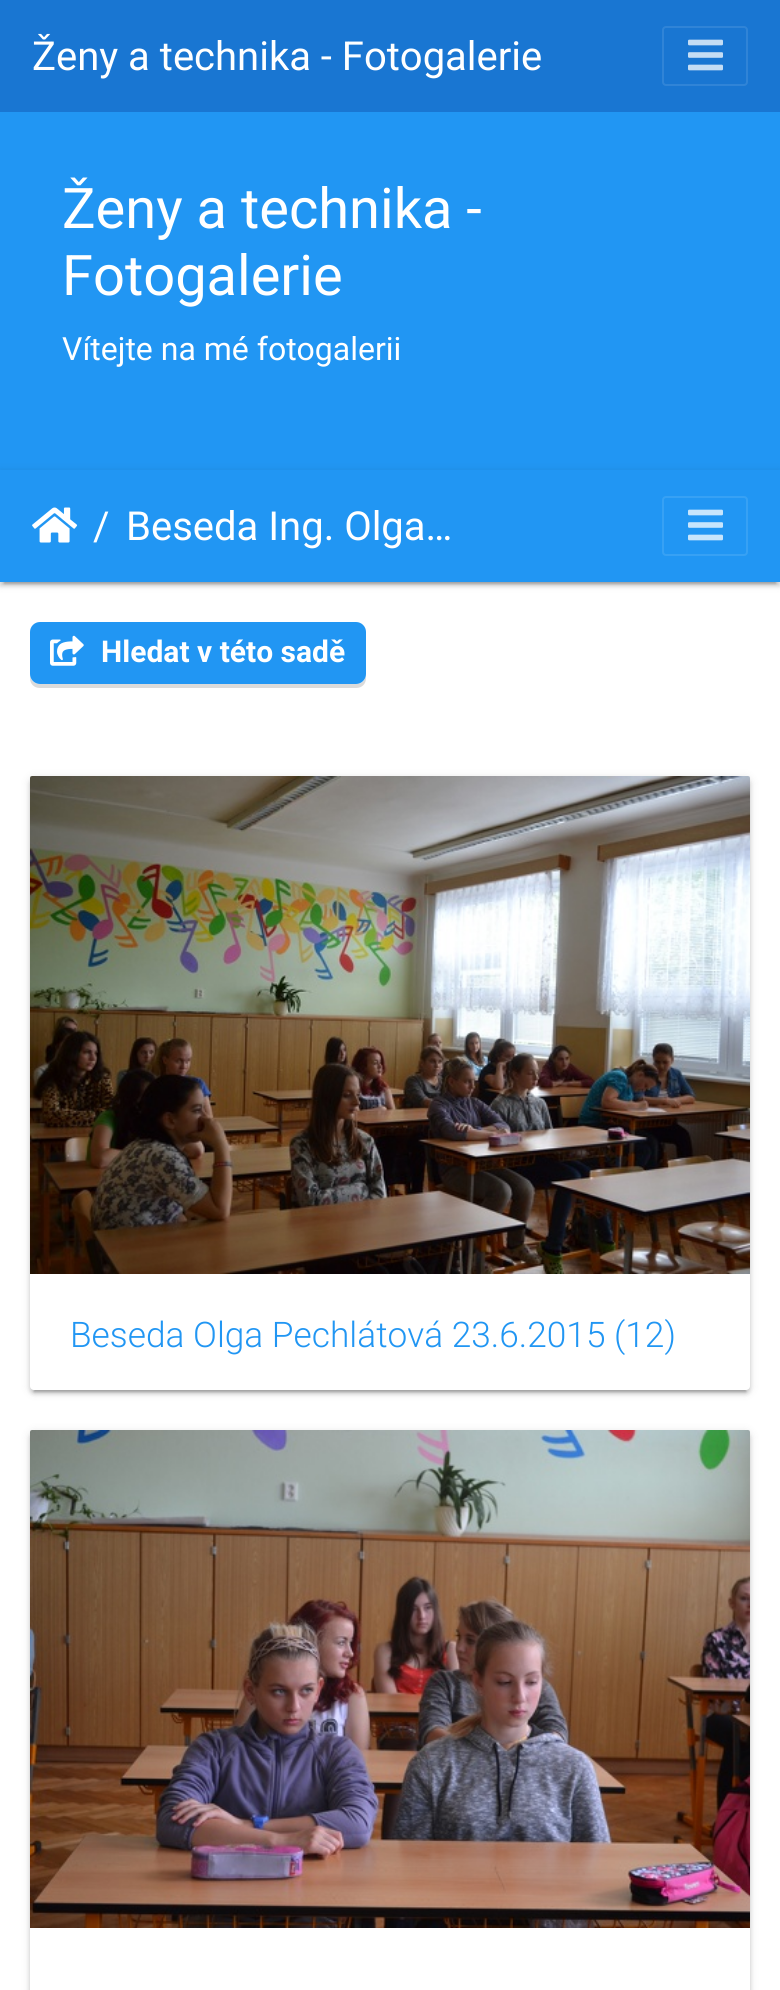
#include <cairo/cairo.h>
#include <math.h>
#include <stddef.h>

static cairo_t *cr;

static void rgb(unsigned color)
{
	cairo_set_source_rgb(cr, (color >> 16) / 255.0, (color >> 8 & 255) / 255.0, (color & 255) / 255.0);
}

static void rrect(double x, double y, double w, double h, double r)
{
	cairo_new_sub_path(cr);
	cairo_arc(cr, x + w - r, y + h - r, r, 0, M_PI / 2);
	cairo_arc(cr, x + r, y + h - r, r, M_PI / 2, M_PI);
	cairo_arc(cr, x + r, y + r, r, M_PI, 1.5 * M_PI);
	cairo_arc(cr, x + w - r, y + r, r, 1.5 * M_PI, 2 * M_PI);
	cairo_close_path(cr);
}

static void soft_shadow(double x, double y, double w, double h, double r, double blur, double alpha)
{
	cairo_push_group_with_content(cr, CAIRO_CONTENT_ALPHA);
	cairo_set_operator(cr, CAIRO_OPERATOR_SOURCE);
	for (int i = 15; i >= -15 && fmin(w, h) + blur * i / 3 > 0; i -= 2) {
		double e = blur * i / 6;
		cairo_set_source_rgba(cr, 0, 0, 0, alpha * erfc((i - 1) / 8.5) / 2);
		rrect(x - e, y - e, w + 2 * e, h + 2 * e, fmax(0, fmin(r + e + blur * .6, fmin(w, h) / 2 + e)));
		cairo_fill(cr);
	}
	cairo_pattern_t *soft = cairo_pop_group(cr);
	cairo_mask(cr, soft);
	cairo_pattern_destroy(soft);
}

static void image(const char *path, double x, double y, double w, double h)
{
	cairo_surface_t *image = cairo_image_surface_create_from_png(path);
	cairo_save(cr);
	cairo_set_source_surface(cr, image, x, y);
	cairo_rectangle(cr, x, y, w, h);
	cairo_fill(cr);
	cairo_restore(cr);
	cairo_surface_destroy(image);
}

int main(void) {
	cairo_surface_t *surface = cairo_image_surface_create(CAIRO_FORMAT_RGB24, 780, 1990);
	cr = cairo_create(surface);
	cairo_font_options_t *options = cairo_font_options_create();
	cairo_font_options_set_hint_metrics(options, CAIRO_HINT_METRICS_OFF);
	cairo_font_options_set_hint_style(options, CAIRO_HINT_STYLE_NONE);
	cairo_set_font_options(cr, options);
	cairo_set_miter_limit(cr, 4);
	rgb(0xffffff);
	cairo_paint(cr);
	rgb(0x1976d2);
	cairo_rectangle(cr, 0, 0, 780, 112);
	cairo_fill(cr);
	rrect(663, 27, 84, 58, 3);
	rgb(0x3084d7);
	cairo_stroke(cr);
	image("img/1.png", 688, 39, 35, 32);
	rgb(0x2196f3);
	cairo_rectangle(cr, 0, 112, 780, 358);
	cairo_fill(cr);
	rgb(0x000000);
	soft_shadow(0, 472, 780, 112, 0, 5, 0.12);
	soft_shadow(4, 480, 772, 104, 0, 1, 0.2);
	soft_shadow(0, 474, 780, 112, 0, 2, 0.14);
	rgb(0x2196f3);
	cairo_rectangle(cr, 0, 470, 780, 112);
	cairo_fill(cr);
	image("img/2.png", 32, 507, 46, 36);
	rrect(663, 497, 84, 58, 3);
	rgb(0x37a1f4);
	cairo_stroke(cr);
	image("img/3.png", 688, 509, 35, 32);
	rgb(0xdbdbdb);
	cairo_new_path(cr);
	cairo_move_to(cr, 30, 674);
	cairo_line_to(cr, 30, 678);
	cairo_curve_to(cr, 30, 684, 34, 688, 40, 688);
	cairo_line_to(cr, 356, 688);
	cairo_curve_to(cr, 362, 688, 366, 684, 366, 678);
	cairo_line_to(cr, 366, 674);
	cairo_curve_to(cr, 366, 680, 362, 684, 356, 684);
	cairo_line_to(cr, 40, 684);
	cairo_curve_to(cr, 34, 684, 30, 680, 30, 674);
	cairo_close_path(cr);
	cairo_fill(cr);
	rgb(0x2196f3);
	rrect(30, 622, 336, 62, 10);
	cairo_fill(cr);
	image("img/4.png", 50, 635, 34, 31);
	rgb(0x000000);
	soft_shadow(30, 778, 720, 614, 4, 5, 0.12);
	soft_shadow(34, 786, 712, 606, 0, 1, 0.2);
	soft_shadow(30, 780, 720, 614, 4, 2, 0.14);
	rgb(0xffffff);
	rrect(30, 776, 720, 614, 4);
	cairo_fill(cr);
	image("img/5.png", 30, 776, 720, 498);
	rgb(0x000000);
	soft_shadow(30, 1432, 720, 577, 4, 5, 0.12);
	soft_shadow(30, 1434, 720, 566, 4, 2, 0.14);
	rgb(0xffffff);
	rrect(30, 1430, 720, 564, 4);
	cairo_fill(cr);
	image("img/6.png", 30, 1430, 720, 498);
	cairo_select_font_face(cr, "Roboto", CAIRO_FONT_SLANT_NORMAL, CAIRO_FONT_WEIGHT_NORMAL);
	cairo_set_font_size(cr, 40);
	cairo_move_to(cr, 32, 70);
	cairo_show_text(cr, "Ženy a technika - Fotogalerie");
	cairo_set_font_size(cr, 56);
	cairo_move_to(cr, 62, 228);
	cairo_show_text(cr, "Ženy a technika -");
	cairo_move_to(cr, 62, 295);
	cairo_show_text(cr, "Fotogalerie");
	cairo_set_font_size(cr, 32);
	cairo_move_to(cr, 62, 360);
	cairo_show_text(cr, "Vítejte na mé fotogalerii");
	cairo_set_font_size(cr, 40);
	cairo_move_to(cr, 93, 540);
	cairo_show_text(cr, "/");
	cairo_move_to(cr, 126, 540);
	cairo_show_text(cr, "Beseda Ing. Olga…");
	cairo_select_font_face(cr, "Roboto", CAIRO_FONT_SLANT_NORMAL, CAIRO_FONT_WEIGHT_BOLD);
	cairo_set_font_size(cr, 30);
	cairo_move_to(cr, 101, 662);
	cairo_show_text(cr, "Hledat v této sadě");
	cairo_select_font_face(cr, "Roboto Light", CAIRO_FONT_SLANT_NORMAL, CAIRO_FONT_WEIGHT_NORMAL);
	cairo_set_font_size(cr, 35.25);
	rgb(0x2196f3);
	cairo_move_to(cr, 70, 1347);
	cairo_show_text(cr, "Beseda Olga Pechlátová 23.6.2015 (12)");
	cairo_surface_write_to_png(surface, "page.png");
	cairo_font_options_destroy(options);
	cairo_destroy(cr);
	cairo_surface_destroy(surface);
	return 0;
}
